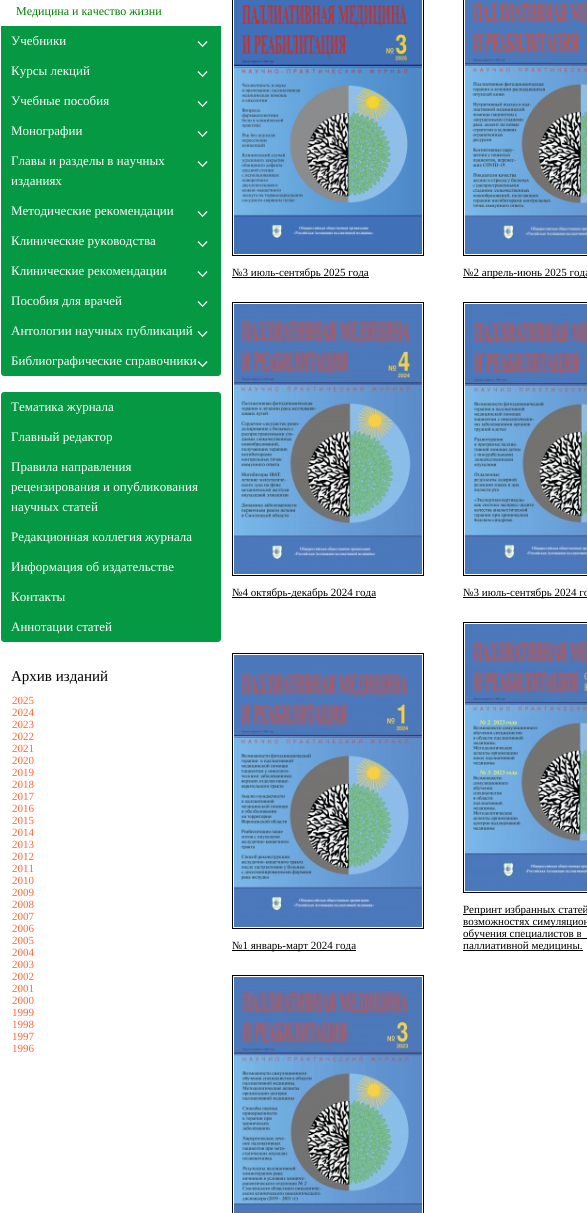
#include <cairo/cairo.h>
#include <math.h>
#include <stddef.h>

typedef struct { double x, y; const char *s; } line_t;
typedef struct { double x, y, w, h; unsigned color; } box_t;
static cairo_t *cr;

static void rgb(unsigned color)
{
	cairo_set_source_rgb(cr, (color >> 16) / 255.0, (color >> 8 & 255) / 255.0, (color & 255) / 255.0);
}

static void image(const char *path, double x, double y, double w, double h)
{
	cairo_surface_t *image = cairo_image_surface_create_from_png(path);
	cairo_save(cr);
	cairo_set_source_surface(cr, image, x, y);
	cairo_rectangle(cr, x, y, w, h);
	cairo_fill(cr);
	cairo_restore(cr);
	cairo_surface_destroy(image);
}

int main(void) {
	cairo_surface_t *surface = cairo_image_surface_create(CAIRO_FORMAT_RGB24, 587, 1213);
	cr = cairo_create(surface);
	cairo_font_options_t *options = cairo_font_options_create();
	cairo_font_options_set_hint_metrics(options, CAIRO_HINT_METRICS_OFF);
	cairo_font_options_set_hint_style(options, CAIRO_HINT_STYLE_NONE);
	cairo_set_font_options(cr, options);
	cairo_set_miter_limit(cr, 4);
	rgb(0xffffff);
	cairo_paint(cr);
	rgb(0x059944);
	cairo_rectangle(cr, 1, 26, 220, 320);
	cairo_fill(cr);
	rgb(0xffffff);
	cairo_new_path(cr);
	cairo_move_to(cr, 202, 46);
	cairo_line_to(cr, 206.5, 41);
	cairo_line_to(cr, 207.5, 42);
	cairo_line_to(cr, 202.5, 47);
	cairo_close_path(cr);
	cairo_fill(cr);
	cairo_new_path(cr);
	cairo_move_to(cr, 197.5, 42);
	cairo_line_to(cr, 198.5, 41);
	cairo_line_to(cr, 203, 46);
	cairo_line_to(cr, 202.5, 47);
	cairo_close_path(cr);
	cairo_fill(cr);
	cairo_new_path(cr);
	cairo_move_to(cr, 202, 76);
	cairo_line_to(cr, 206.5, 71);
	cairo_line_to(cr, 207.5, 72);
	cairo_line_to(cr, 202.5, 77);
	cairo_close_path(cr);
	cairo_fill(cr);
	cairo_new_path(cr);
	cairo_move_to(cr, 197.5, 72);
	cairo_line_to(cr, 198.5, 71);
	cairo_line_to(cr, 203, 76);
	cairo_line_to(cr, 202.5, 77);
	cairo_close_path(cr);
	cairo_fill(cr);
	cairo_new_path(cr);
	cairo_move_to(cr, 202, 106);
	cairo_line_to(cr, 206.5, 101);
	cairo_line_to(cr, 207.5, 102);
	cairo_line_to(cr, 202.5, 107);
	cairo_close_path(cr);
	cairo_fill(cr);
	cairo_new_path(cr);
	cairo_move_to(cr, 197.5, 102);
	cairo_line_to(cr, 198.5, 101);
	cairo_line_to(cr, 203, 106);
	cairo_line_to(cr, 202.5, 107);
	cairo_close_path(cr);
	cairo_fill(cr);
	cairo_new_path(cr);
	cairo_move_to(cr, 202, 136);
	cairo_line_to(cr, 206.5, 131);
	cairo_line_to(cr, 207.5, 132);
	cairo_line_to(cr, 202.5, 137);
	cairo_close_path(cr);
	cairo_fill(cr);
	cairo_new_path(cr);
	cairo_move_to(cr, 197.5, 132);
	cairo_line_to(cr, 198.5, 131);
	cairo_line_to(cr, 203, 136);
	cairo_line_to(cr, 202.5, 137);
	cairo_close_path(cr);
	cairo_fill(cr);
	cairo_new_path(cr);
	cairo_move_to(cr, 202, 166);
	cairo_line_to(cr, 206.5, 161);
	cairo_line_to(cr, 207.5, 162);
	cairo_line_to(cr, 202.5, 167);
	cairo_close_path(cr);
	cairo_fill(cr);
	cairo_new_path(cr);
	cairo_move_to(cr, 197.5, 162);
	cairo_line_to(cr, 198.5, 161);
	cairo_line_to(cr, 203, 166);
	cairo_line_to(cr, 202.5, 167);
	cairo_close_path(cr);
	cairo_fill(cr);
	cairo_new_path(cr);
	cairo_move_to(cr, 202, 216);
	cairo_line_to(cr, 206.5, 211);
	cairo_line_to(cr, 207.5, 212);
	cairo_line_to(cr, 202.5, 217);
	cairo_close_path(cr);
	cairo_fill(cr);
	cairo_new_path(cr);
	cairo_move_to(cr, 197.5, 212);
	cairo_line_to(cr, 198.5, 211);
	cairo_line_to(cr, 203, 216);
	cairo_line_to(cr, 202.5, 217);
	cairo_close_path(cr);
	cairo_fill(cr);
	cairo_new_path(cr);
	cairo_move_to(cr, 202, 246);
	cairo_line_to(cr, 206.5, 241);
	cairo_line_to(cr, 207.5, 242);
	cairo_line_to(cr, 202.5, 247);
	cairo_close_path(cr);
	cairo_fill(cr);
	cairo_new_path(cr);
	cairo_move_to(cr, 197.5, 242);
	cairo_line_to(cr, 198.5, 241);
	cairo_line_to(cr, 203, 246);
	cairo_line_to(cr, 202.5, 247);
	cairo_close_path(cr);
	cairo_fill(cr);
	cairo_new_path(cr);
	cairo_move_to(cr, 202, 276);
	cairo_line_to(cr, 206.5, 271);
	cairo_line_to(cr, 207.5, 272);
	cairo_line_to(cr, 202.5, 277);
	cairo_close_path(cr);
	cairo_fill(cr);
	cairo_new_path(cr);
	cairo_move_to(cr, 197.5, 272);
	cairo_line_to(cr, 198.5, 271);
	cairo_line_to(cr, 203, 276);
	cairo_line_to(cr, 202.5, 277);
	cairo_close_path(cr);
	cairo_fill(cr);
	cairo_new_path(cr);
	cairo_move_to(cr, 202, 306);
	cairo_line_to(cr, 206.5, 301);
	cairo_line_to(cr, 207.5, 302);
	cairo_line_to(cr, 202.5, 307);
	cairo_close_path(cr);
	cairo_fill(cr);
	cairo_new_path(cr);
	cairo_move_to(cr, 197.5, 302);
	cairo_line_to(cr, 198.5, 301);
	cairo_line_to(cr, 203, 306);
	cairo_line_to(cr, 202.5, 307);
	cairo_close_path(cr);
	cairo_fill(cr);
	cairo_new_path(cr);
	cairo_move_to(cr, 202, 336);
	cairo_line_to(cr, 206.5, 331);
	cairo_line_to(cr, 207.5, 332);
	cairo_line_to(cr, 202.5, 337);
	cairo_close_path(cr);
	cairo_fill(cr);
	cairo_new_path(cr);
	cairo_move_to(cr, 197.5, 332);
	cairo_line_to(cr, 198.5, 331);
	cairo_line_to(cr, 203, 336);
	cairo_line_to(cr, 202.5, 337);
	cairo_close_path(cr);
	cairo_fill(cr);
	rgb(0x059944);
	cairo_new_path(cr);
	cairo_move_to(cr, 1, 346);
	cairo_line_to(cr, 221, 346);
	cairo_line_to(cr, 221, 373);
	cairo_curve_to(cr, 221, 374.5, 219.5, 376, 218, 376);
	cairo_line_to(cr, 4, 376);
	cairo_curve_to(cr, 2.5, 376, 1, 374.5, 1, 373);
	cairo_close_path(cr);
	cairo_fill(cr);
	rgb(0xffffff);
	cairo_new_path(cr);
	cairo_move_to(cr, 202, 366);
	cairo_line_to(cr, 206.5, 361);
	cairo_line_to(cr, 207.5, 362);
	cairo_line_to(cr, 202.5, 367);
	cairo_close_path(cr);
	cairo_fill(cr);
	cairo_new_path(cr);
	cairo_move_to(cr, 197.5, 362);
	cairo_line_to(cr, 198.5, 361);
	cairo_line_to(cr, 203, 366);
	cairo_line_to(cr, 202.5, 367);
	cairo_close_path(cr);
	cairo_fill(cr);
	rgb(0x059944);
	cairo_new_path(cr);
	cairo_move_to(cr, 4, 392);
	cairo_line_to(cr, 218, 392);
	cairo_curve_to(cr, 219.5, 392, 221, 393.5, 221, 395);
	cairo_line_to(cr, 221, 422);
	cairo_line_to(cr, 1, 422);
	cairo_line_to(cr, 1, 395);
	cairo_curve_to(cr, 1, 393.5, 2.5, 392, 4, 392);
	cairo_close_path(cr);
	cairo_fill(cr);
	cairo_rectangle(cr, 1, 422, 220, 190);
	cairo_fill(cr);
	cairo_new_path(cr);
	cairo_move_to(cr, 1, 612);
	cairo_line_to(cr, 221, 612);
	cairo_line_to(cr, 221, 639);
	cairo_curve_to(cr, 221, 640.5, 219.5, 642, 218, 642);
	cairo_line_to(cr, 4, 642);
	cairo_curve_to(cr, 2.5, 642, 1, 640.5, 1, 639);
	cairo_close_path(cr);
	cairo_fill(cr);
	cairo_rectangle(cr, 232.5, -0.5, 191, 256);
	rgb(0x000000);
	cairo_set_line_width(cr, 1);
	cairo_stroke(cr);
	image("img/1.png", 234, 0, 188, 254);
	cairo_rectangle(cr, 232, 277, 137, 1);
	cairo_fill(cr);
	cairo_rectangle(cr, 463.5, -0.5, 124, 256);
	cairo_stroke(cr);
	image("img/2.png", 465, 0, 122, 254);
	cairo_rectangle(cr, 463, 277, 124, 1);
	cairo_fill(cr);
	cairo_rectangle(cr, 232.5, 302.5, 191, 273);
	cairo_stroke(cr);
	image("img/3.png", 234, 304, 188, 270);
	cairo_rectangle(cr, 232, 597, 144, 1);
	cairo_fill(cr);
	cairo_rectangle(cr, 463.5, 302.5, 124, 273);
	cairo_stroke(cr);
	image("img/4.png", 465, 304, 122, 270);
	cairo_rectangle(cr, 463, 597, 124, 1);
	cairo_fill(cr);
	cairo_rectangle(cr, 232.5, 653.5, 191, 275);
	cairo_stroke(cr);
	image("img/5.png", 234, 655, 188, 272);
	cairo_rectangle(cr, 232, 950, 124, 1);
	cairo_fill(cr);
	cairo_rectangle(cr, 463.5, 622.5, 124, 270);
	cairo_stroke(cr);
	image("img/6.png", 465, 624, 122, 267);
	{
		static const box_t items[] = {
			{463, 914, 124, 1, 0x000000},
			{463, 926, 124, 1, 0x000000},
			{463, 938, 124, 1, 0x000000},
			{463, 950, 120, 1, 0x000000},
		};
		for (size_t i = 0; i < sizeof items / sizeof *items; i++) {
			rgb(items[i].color);
			cairo_rectangle(cr, items[i].x, items[i].y, items[i].w, items[i].h);
			cairo_fill(cr);
		}
	}
	cairo_rectangle(cr, 232.5, 975.5, 191, 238);
	cairo_stroke(cr);
	image("img/7.png", 234, 977, 188, 236);
	cairo_select_font_face(cr, "Liberation Serif", CAIRO_FONT_SLANT_NORMAL, CAIRO_FONT_WEIGHT_NORMAL);
	cairo_set_font_size(cr, 12);
	rgb(0x008000);
	cairo_move_to(cr, 16, 15);
	cairo_show_text(cr, "Медицина и качество жизни");
	cairo_set_font_size(cr, 13);
	rgb(0xffffff);
	{
		static const line_t items[] = {
			{11, 45, "Учебники"},
			{11, 75, "Курсы лекций"},
			{11, 105, "Учебные пособия"},
			{11, 135, "Монографии"},
			{11, 165, "Главы и разделы в научных"},
			{11, 185, "изданиях"},
			{11, 215, "Методические рекомендации"},
			{11, 245, "Клинические руководства"},
			{11, 275, "Клинические рекомендации"},
			{11, 305, "Пособия для врачей"},
			{11, 335, "Антологии научных публикаций"},
			{11, 365, "Библиографические справочники"},
			{11, 411, "Тематика журнала"},
			{11, 441, "Главный редактор"},
			{11, 471, "Правила направления"},
			{11, 491, "рецензирования и опубликования"},
			{11, 511, "научных статей"},
			{11, 541, "Редакционная коллегия журнала"},
			{11, 571, "Информация об издательстве"},
			{11, 601, "Контакты"},
			{11, 631, "Аннотации статей"},
		};
		for (size_t i = 0; i < sizeof items / sizeof *items; i++) {
			cairo_move_to(cr, items[i].x, items[i].y);
			cairo_show_text(cr, items[i].s);
		}
	}
	cairo_set_font_size(cr, 15);
	rgb(0x000000);
	cairo_move_to(cr, 11, 681);
	cairo_show_text(cr, "Архив изданий");
	cairo_set_font_size(cr, 11);
	rgb(0xff6633);
	{
		static const line_t items[] = {
			{12, 704, "2025"},
			{12, 716, "2024"},
			{12, 728, "2023"},
			{12, 740, "2022"},
			{12, 752, "2021"},
			{12, 764, "2020"},
			{12, 776, "2019"},
			{12, 788, "2018"},
			{12, 800, "2017"},
			{12, 812, "2016"},
			{12, 824, "2015"},
			{12, 836, "2014"},
			{12, 848, "2013"},
			{12, 860, "2012"},
			{12, 872, "2011"},
			{12, 884, "2010"},
			{12, 896, "2009"},
			{12, 908, "2008"},
			{12, 920, "2007"},
			{12, 932, "2006"},
			{12, 944, "2005"},
			{12, 956, "2004"},
			{12, 968, "2003"},
			{12, 980, "2002"},
			{12, 992, "2001"},
			{12, 1004, "2000"},
			{12, 1016, "1999"},
			{12, 1028, "1998"},
			{12, 1040, "1997"},
			{12, 1052, "1996"},
		};
		for (size_t i = 0; i < sizeof items / sizeof *items; i++) {
			cairo_move_to(cr, items[i].x, items[i].y);
			cairo_show_text(cr, items[i].s);
		}
	}
	rgb(0x000000);
	{
		static const line_t items[] = {
			{232, 276, "№3 июль-сентябрь 2025 года"},
			{463, 276, "№2 апрель-июнь 2025 года"},
			{232, 596, "№4 октябрь-декабрь 2024 года"},
			{463, 596, "№3 июль-сентябрь 2024 го"},
			{232, 949, "№1 январь-март 2024 года"},
			{463, 913, "Репринт избранных статей"},
			{463, 925, "возможностях симуляцион"},
			{463, 937, "обучения специалистов в"},
			{463, 949, "паллиативной медицины."},
		};
		for (size_t i = 0; i < sizeof items / sizeof *items; i++) {
			cairo_move_to(cr, items[i].x, items[i].y);
			cairo_show_text(cr, items[i].s);
		}
	}
	cairo_surface_write_to_png(surface, "page.png");
	cairo_font_options_destroy(options);
	cairo_destroy(cr);
	cairo_surface_destroy(surface);
	return 0;
}
